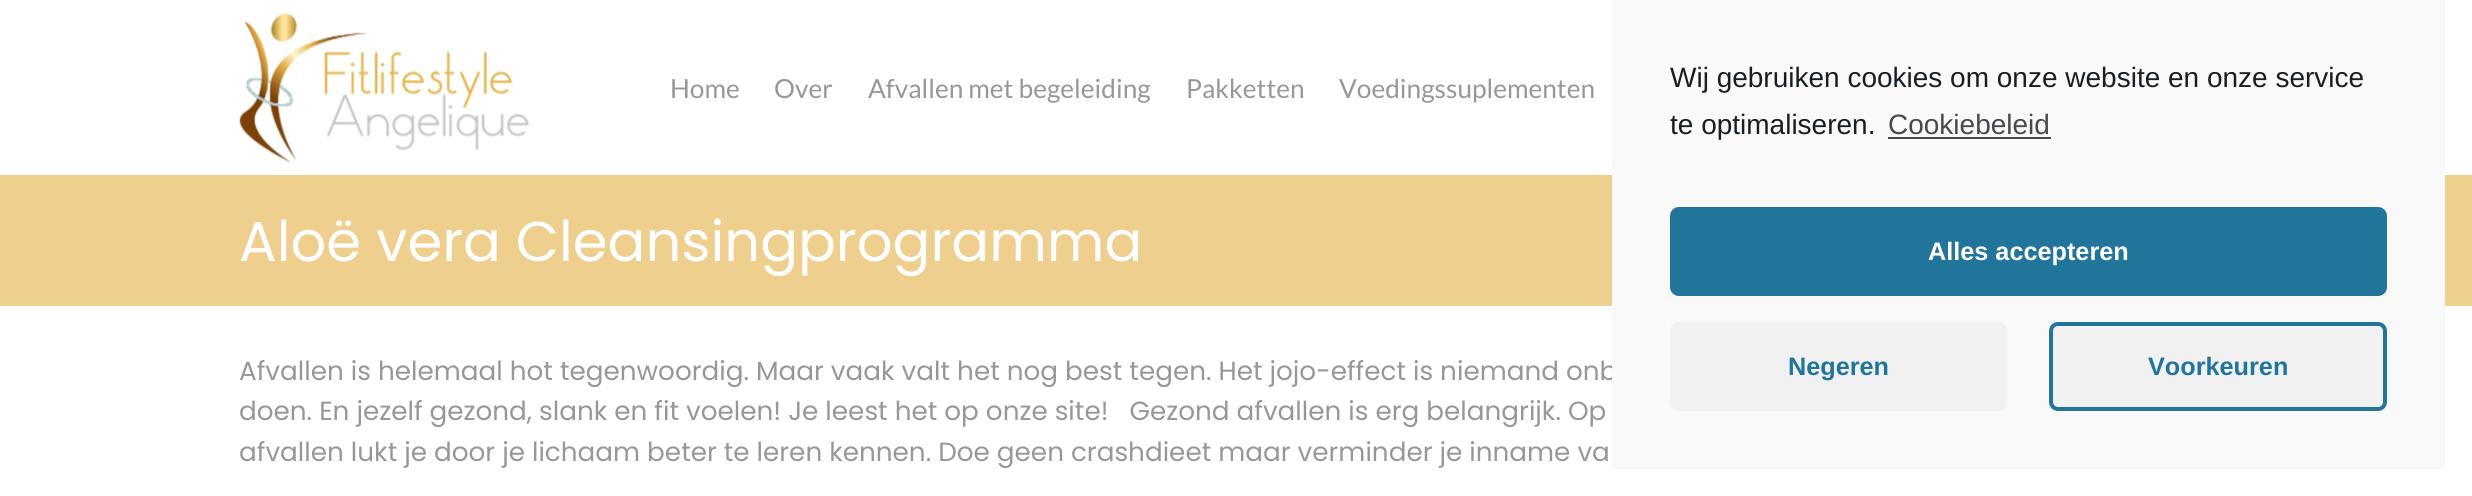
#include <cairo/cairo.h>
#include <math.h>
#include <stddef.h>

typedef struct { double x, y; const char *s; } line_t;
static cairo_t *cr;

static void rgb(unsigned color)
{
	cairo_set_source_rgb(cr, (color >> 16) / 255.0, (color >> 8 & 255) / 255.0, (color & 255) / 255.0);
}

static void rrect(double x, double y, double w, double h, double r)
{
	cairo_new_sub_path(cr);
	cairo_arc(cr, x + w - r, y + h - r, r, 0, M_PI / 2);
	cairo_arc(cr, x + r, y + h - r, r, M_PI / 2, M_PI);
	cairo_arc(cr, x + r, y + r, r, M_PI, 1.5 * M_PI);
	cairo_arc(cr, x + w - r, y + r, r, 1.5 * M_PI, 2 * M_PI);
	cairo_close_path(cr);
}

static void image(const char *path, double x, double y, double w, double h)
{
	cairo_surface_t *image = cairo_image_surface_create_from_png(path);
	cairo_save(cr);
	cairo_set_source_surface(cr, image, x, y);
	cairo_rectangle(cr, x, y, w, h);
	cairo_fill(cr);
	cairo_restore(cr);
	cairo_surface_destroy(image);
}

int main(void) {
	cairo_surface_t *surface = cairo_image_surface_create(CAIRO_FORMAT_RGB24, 2472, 496);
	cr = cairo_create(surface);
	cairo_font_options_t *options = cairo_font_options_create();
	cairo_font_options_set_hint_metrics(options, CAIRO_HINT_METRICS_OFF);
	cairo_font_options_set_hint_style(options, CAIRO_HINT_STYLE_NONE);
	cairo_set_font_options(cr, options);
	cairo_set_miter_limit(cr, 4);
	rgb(0xffffff);
	cairo_paint(cr);
	image("img/1.png", 239, 13, 290, 150);
	rgb(0xeecf8e);
	cairo_rectangle(cr, 0, 175, 2472, 131);
	cairo_fill(cr);
	cairo_select_font_face(cr, "Lato", CAIRO_FONT_SLANT_NORMAL, CAIRO_FONT_WEIGHT_NORMAL);
	cairo_set_font_size(cr, 26.25);
	rgb(0x979797);
	{
		static const line_t items[] = {
			{670, 98, "Home"},
			{774, 98, "Over"},
			{868, 98, "Afvallen met begeleiding"},
			{1186, 98, "Pakketten"},
			{1339, 98, "Voedingssuplementen"},
		};
		for (size_t i = 0; i < sizeof items / sizeof *items; i++) {
			cairo_move_to(cr, items[i].x, items[i].y);
			cairo_show_text(cr, items[i].s);
		}
	}
	cairo_select_font_face(cr, "Poppins", CAIRO_FONT_SLANT_NORMAL, CAIRO_FONT_WEIGHT_NORMAL);
	cairo_set_font_size(cr, 56);
	rgb(0xffffff);
	cairo_move_to(cr, 239, 261);
	cairo_show_text(cr, "Aloë vera Cleansingprogramma");
	cairo_set_font_size(cr, 26.25);
	rgb(0x979797);
	{
		static const line_t items[] = {
			{239, 380, "Afvallen is helemaal hot tegenwoordig. Maar vaak valt het nog best tegen. Het jojo-effect is niemand onb"},
			{239, 420, "doen. En jezelf gezond, slank en fit voelen! Je leest het op onze site!   Gezond afvallen is erg belangrijk. Op"},
			{239, 461, "afvallen lukt je door je lichaam beter te leren kennen. Doe geen crashdieet maar verminder je inname va"},
		};
		for (size_t i = 0; i < sizeof items / sizeof *items; i++) {
			cairo_move_to(cr, items[i].x, items[i].y);
			cairo_show_text(cr, items[i].s);
		}
	}
	rgb(0xf9f9f9);
	cairo_rectangle(cr, 1612, 0, 833, 469);
	cairo_fill(cr);
	cairo_select_font_face(cr, "Liberation Sans", CAIRO_FONT_SLANT_NORMAL, CAIRO_FONT_WEIGHT_NORMAL);
	cairo_set_font_size(cr, 28);
	rgb(0x191e23);
	cairo_move_to(cr, 1670, 87);
	cairo_show_text(cr, "Wij gebruiken cookies om onze website en onze service");
	cairo_move_to(cr, 1670, 134);
	cairo_show_text(cr, "te optimaliseren.");
	rgb(0x464a4e);
	cairo_move_to(cr, 1888, 134);
	cairo_show_text(cr, "Cookiebeleid");
	cairo_rectangle(cr, 1888, 137, 163, 2);
	cairo_fill(cr);
	rgb(0x21759b);
	rrect(1672, 209, 713, 85, 7);
	cairo_fill_preserve(cr);
	cairo_set_line_width(cr, 4);
	cairo_stroke(cr);
	cairo_select_font_face(cr, "Liberation Sans", CAIRO_FONT_SLANT_NORMAL, CAIRO_FONT_WEIGHT_BOLD);
	cairo_set_font_size(cr, 25.25);
	rgb(0xffffff);
	cairo_move_to(cr, 1928, 260);
	cairo_show_text(cr, "Alles accepteren");
	rgb(0xf1f1f1);
	rrect(1670, 322, 337, 89, 9);
	cairo_fill(cr);
	rgb(0x21759b);
	cairo_move_to(cr, 1788, 375);
	cairo_show_text(cr, "Negeren");
	rgb(0xf1f1f1);
	rrect(2051, 324, 334, 85, 7);
	cairo_fill_preserve(cr);
	rgb(0x21759b);
	cairo_stroke(cr);
	cairo_move_to(cr, 2148, 375);
	cairo_show_text(cr, "Voorkeuren");
	cairo_surface_write_to_png(surface, "page.png");
	cairo_font_options_destroy(options);
	cairo_destroy(cr);
	cairo_surface_destroy(surface);
	return 0;
}
